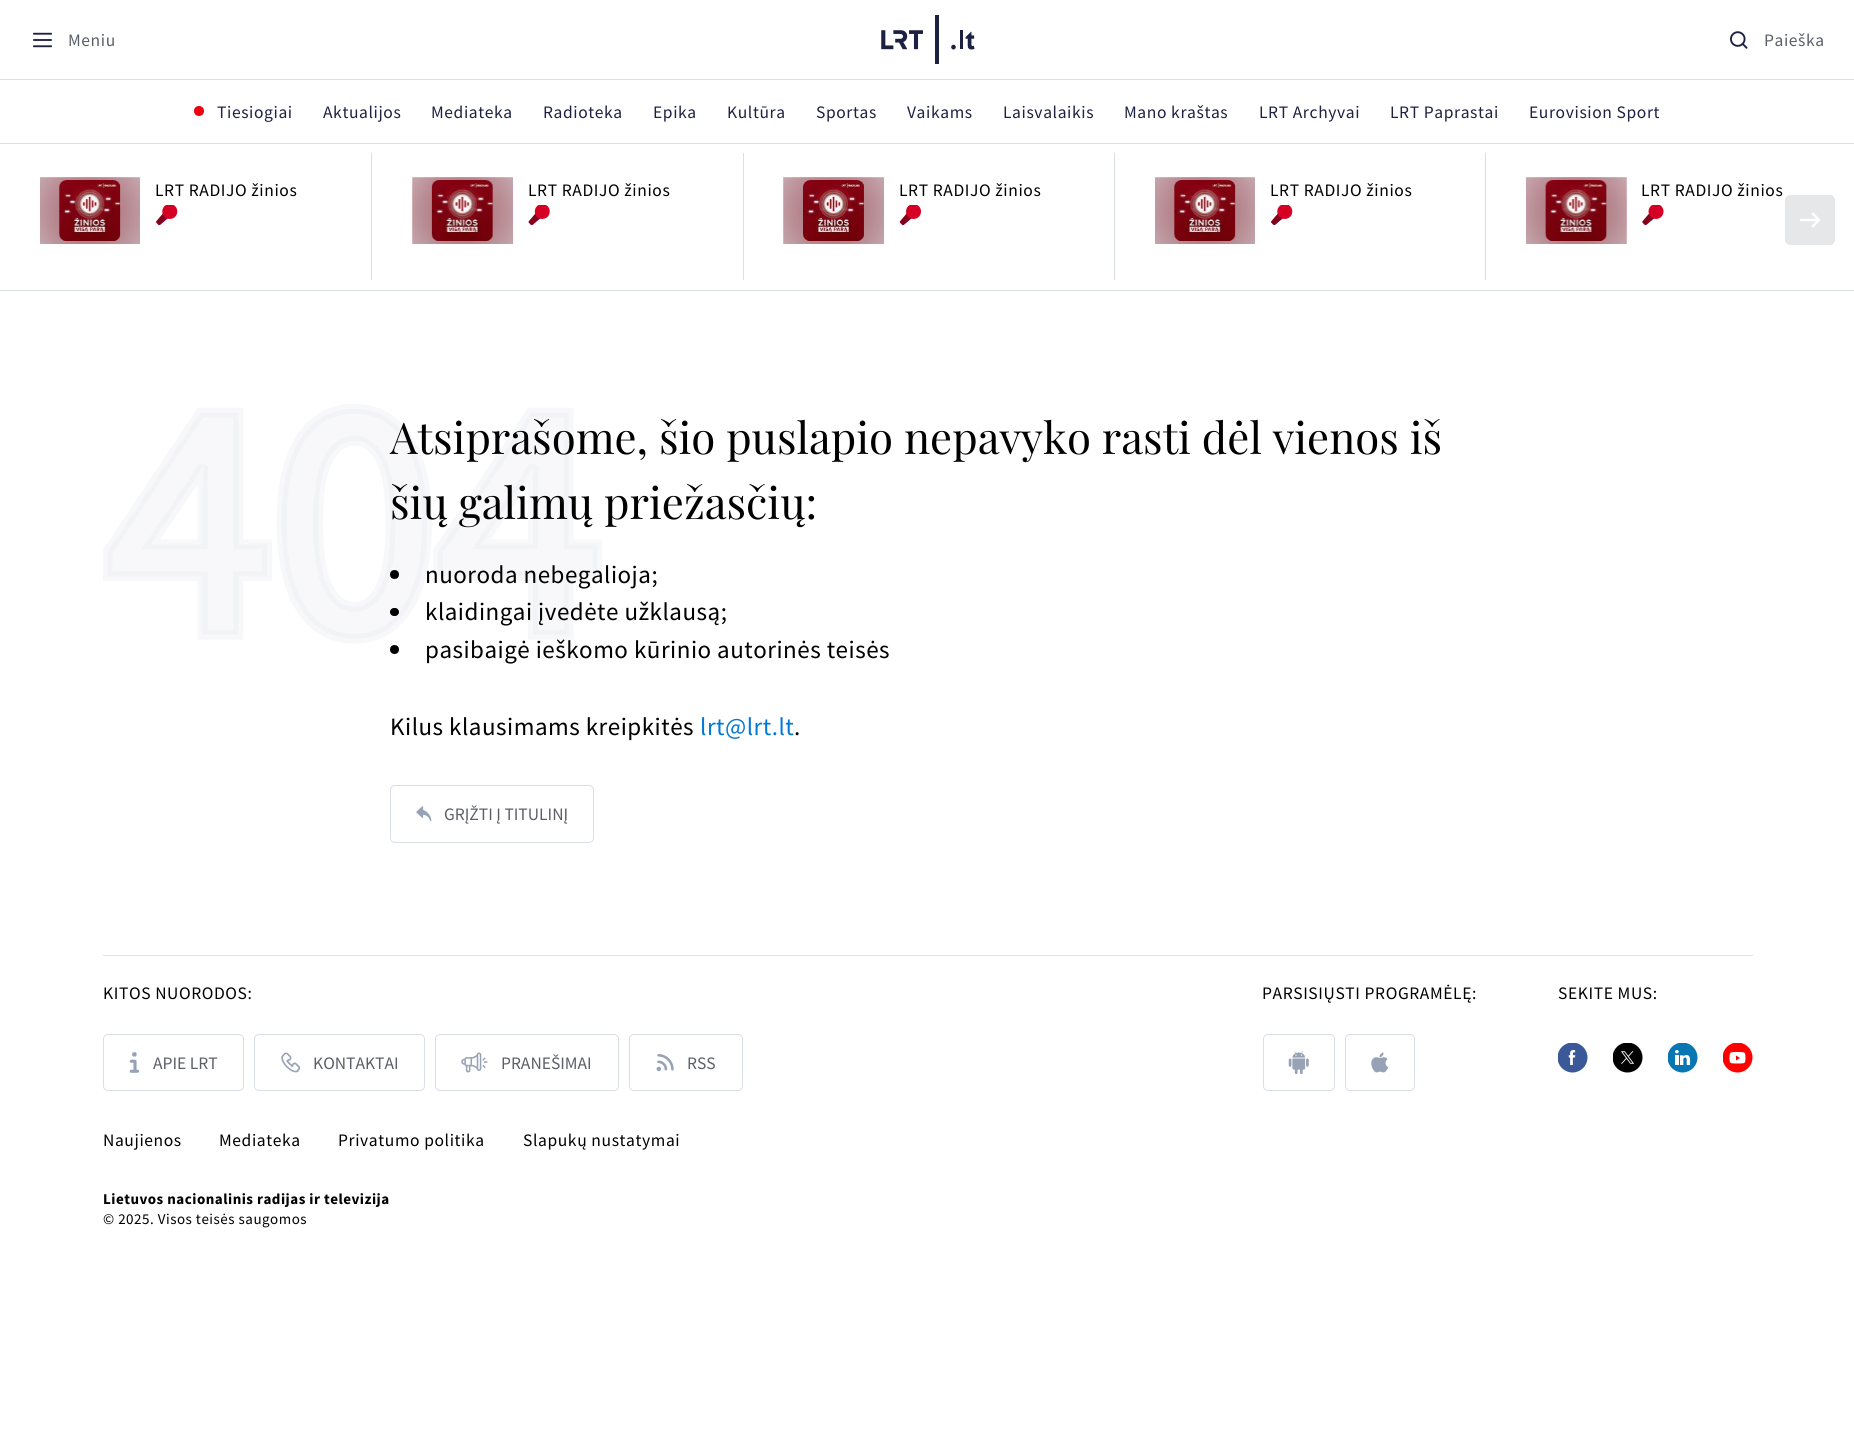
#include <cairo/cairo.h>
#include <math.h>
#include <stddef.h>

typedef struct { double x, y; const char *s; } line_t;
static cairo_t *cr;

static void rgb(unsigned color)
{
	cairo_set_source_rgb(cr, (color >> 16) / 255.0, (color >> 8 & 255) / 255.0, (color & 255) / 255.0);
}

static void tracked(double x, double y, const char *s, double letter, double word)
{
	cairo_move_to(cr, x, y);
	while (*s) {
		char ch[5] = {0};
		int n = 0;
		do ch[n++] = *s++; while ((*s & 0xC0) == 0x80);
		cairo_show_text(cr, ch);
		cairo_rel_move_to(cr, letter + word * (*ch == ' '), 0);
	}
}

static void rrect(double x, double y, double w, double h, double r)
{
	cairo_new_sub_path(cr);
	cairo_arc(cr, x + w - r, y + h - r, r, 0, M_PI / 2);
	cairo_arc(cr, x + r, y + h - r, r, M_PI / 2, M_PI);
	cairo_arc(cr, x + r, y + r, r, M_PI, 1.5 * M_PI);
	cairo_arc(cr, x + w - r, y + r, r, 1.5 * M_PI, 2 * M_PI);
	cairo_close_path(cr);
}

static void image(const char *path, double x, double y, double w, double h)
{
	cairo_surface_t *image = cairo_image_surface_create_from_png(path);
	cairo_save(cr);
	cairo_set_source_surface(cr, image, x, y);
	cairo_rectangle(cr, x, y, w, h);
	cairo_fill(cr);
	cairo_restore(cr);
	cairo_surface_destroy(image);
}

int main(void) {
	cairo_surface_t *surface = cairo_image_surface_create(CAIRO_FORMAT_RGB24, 1854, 1451);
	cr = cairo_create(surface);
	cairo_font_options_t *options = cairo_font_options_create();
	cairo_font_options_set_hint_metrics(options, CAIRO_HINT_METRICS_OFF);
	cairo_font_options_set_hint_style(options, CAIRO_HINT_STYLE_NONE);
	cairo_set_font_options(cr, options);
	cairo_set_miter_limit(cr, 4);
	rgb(0xffffff);
	cairo_paint(cr);
	rgb(0xdadee5);
	cairo_rectangle(cr, 0, 79, 1854, 1);
	cairo_fill(cr);
	image("img/1.png", 33, 32, 19, 16);
	image("img/2.png", 881, 15, 94, 49);
	image("img/3.png", 1730, 31, 18, 18);
	cairo_rectangle(cr, 0, 143, 1854, 1);
	cairo_fill(cr);
	rgb(0xee000e);
	cairo_arc(cr, 199, 111, 5, 0, 2 * M_PI);
	cairo_fill(cr);
	rgb(0xdadee5);
	cairo_rectangle(cr, 0, 290, 1854, 1);
	cairo_fill(cr);
	rgb(0xe0e3e9);
	cairo_rectangle(cr, 40, 178, 100, 66);
	cairo_fill(cr);
	image("img/4.png", 40, 177, 100, 67);
	image("img/5.png", 59, 180, 62, 61);
	image("img/6.png", 156, 205, 22, 20);
	rgb(0xdadee5);
	cairo_rectangle(cr, 371, 153, 1, 127);
	cairo_fill(cr);
	rgb(0xe0e3e9);
	cairo_rectangle(cr, 413, 178, 100, 66);
	cairo_fill(cr);
	image("img/7.png", 412, 177, 101, 67);
	image("img/8.png", 431, 180, 62, 61);
	image("img/9.png", 528, 205, 22, 20);
	rgb(0xdadee5);
	cairo_rectangle(cr, 743, 153, 1, 127);
	cairo_fill(cr);
	rgb(0xe0e3e9);
	cairo_rectangle(cr, 784, 178, 100, 66);
	cairo_fill(cr);
	image("img/10.png", 783, 177, 101, 67);
	image("img/11.png", 803, 180, 61, 61);
	image("img/12.png", 899, 205, 22, 20);
	rgb(0xdadee5);
	cairo_rectangle(cr, 1114, 153, 1, 127);
	cairo_fill(cr);
	rgb(0xe0e3e9);
	cairo_rectangle(cr, 1155, 178, 100, 66);
	cairo_fill(cr);
	image("img/4.png", 1155, 177, 100, 67);
	image("img/5.png", 1174, 180, 62, 61);
	image("img/6.png", 1271, 205, 22, 20);
	rgb(0xdadee5);
	cairo_rectangle(cr, 1485, 153, 1, 127);
	cairo_fill(cr);
	rgb(0xe0e3e9);
	cairo_rectangle(cr, 1526, 178, 100, 66);
	cairo_fill(cr);
	image("img/13.png", 1526, 177, 101, 67);
	image("img/14.png", 1545, 180, 62, 61);
	image("img/15.png", 1642, 205, 22, 20);
	rgb(0xe6e7e8);
	rrect(1785, 195, 50, 50, 5);
	cairo_fill(cr);
	image("img/16.png", 1799, 212, 22, 16);
	image("img/17.png", 103, 404, 499, 240);
	rgb(0x000000);
	cairo_arc(cr, 394.5, 574.5, 4.5, 0, 2 * M_PI);
	cairo_fill(cr);
	rrect(390, 608, 9, 8, 4);
	cairo_fill(cr);
	cairo_arc(cr, 394.5, 649.5, 4.5, 0, 2 * M_PI);
	cairo_fill(cr);
	rrect(390.5, 785.5, 203, 57, 4.5);
	rgb(0xdadee5);
	cairo_set_line_width(cr, 1);
	cairo_stroke(cr);
	image("img/18.png", 416, 806, 16, 16);
	rgb(0xe0e3e9);
	cairo_rectangle(cr, 103, 955, 1650, 1);
	cairo_fill(cr);
	rrect(103.5, 1034.5, 140, 56, 4.5);
	rgb(0xdadee5);
	cairo_stroke(cr);
	image("img/19.png", 129, 1052, 10, 21);
	rrect(254.5, 1034.5, 170, 56, 4.5);
	cairo_stroke(cr);
	image("img/20.png", 281, 1052, 20, 21);
	rrect(435.5, 1034.5, 183, 56, 4.5);
	cairo_stroke(cr);
	image("img/21.png", 461, 1052, 27, 21);
	rrect(629.5, 1034.5, 113, 56, 4.5);
	cairo_stroke(cr);
	image("img/22.png", 656, 1054, 18, 18);
	rrect(1263.5, 1034.5, 71, 56, 4.5);
	cairo_stroke(cr);
	image("img/23.png", 1288, 1051, 21, 24);
	rrect(1345.5, 1034.5, 69, 56, 4.5);
	cairo_stroke(cr);
	image("img/24.png", 1371, 1052, 18, 21);
	image("img/25.png", 1558, 1043, 30, 30);
	image("img/26.png", 1613, 1043, 30, 30);
	image("img/27.png", 1668, 1043, 30, 30);
	image("img/28.png", 1723, 1043, 30, 30);
	cairo_select_font_face(cr, "Source Sans Pro", CAIRO_FONT_SLANT_NORMAL, CAIRO_FONT_WEIGHT_NORMAL);
	cairo_set_font_size(cr, 17.5);
	rgb(0x5b5f66);
	tracked(68, 46, "Meniu", 0.6, 0);
	tracked(1764, 46, "Paieška", 0.6, 0);
	rgb(0x1d2142);
	{
		static const line_t items[] = {
			{217, 118, "Tiesiogiai"},
			{323, 118, "Aktualijos"},
			{431, 118, "Mediateka"},
			{543, 118, "Radioteka"},
			{653, 118, "Epika"},
			{727, 118, "Kultūra"},
			{816, 118, "Sportas"},
			{907, 118, "Vaikams"},
			{1003, 118, "Laisvalaikis"},
			{1124, 118, "Mano kraštas"},
			{1259, 118, "LRT Archyvai"},
			{1390, 118, "LRT Paprastai"},
			{1529, 118, "Eurovision Sport"},
		};
		for (size_t i = 0; i < sizeof items / sizeof *items; i++) {
			tracked(items[i].x, items[i].y, items[i].s, 0.6, 0);
		}
	}
	rgb(0x000000);
	{
		static const line_t items[] = {
			{155, 196, "LRT RADIJO žinios"},
			{528, 196, "LRT RADIJO žinios"},
			{899, 196, "LRT RADIJO žinios"},
			{1270, 196, "LRT RADIJO žinios"},
			{1641, 196, "LRT RADIJO žinios"},
		};
		for (size_t i = 0; i < sizeof items / sizeof *items; i++) {
			tracked(items[i].x, items[i].y, items[i].s, 0.6, 0);
		}
	}
	cairo_select_font_face(cr, "Playfair Display", CAIRO_FONT_SLANT_NORMAL, CAIRO_FONT_WEIGHT_NORMAL);
	cairo_set_font_size(cr, 43.75);
	cairo_move_to(cr, 390, 454);
	cairo_show_text(cr, "Atsiprašome, šio puslapio nepavyko rasti dėl vienos iš");
	cairo_move_to(cr, 390, 519);
	cairo_show_text(cr, "šių galimų priežasčių:");
	cairo_select_font_face(cr, "Source Sans Pro", CAIRO_FONT_SLANT_NORMAL, CAIRO_FONT_WEIGHT_NORMAL);
	cairo_set_font_size(cr, 25);
	{
		static const line_t items[] = {
			{425, 583, "nuoroda nebegalioja;"},
			{425, 620, "klaidingai įvedėte užklausą;"},
			{425, 658, "pasibaigė ieškomo kūrinio autorinės teisės"},
			{390, 735, "Kilus klausimams kreipkitės"},
		};
		for (size_t i = 0; i < sizeof items / sizeof *items; i++) {
			tracked(items[i].x, items[i].y, items[i].s, 0.5, 0);
		}
	}
	rgb(0x0078d6);
	tracked(700, 735, "lrt@lrt.lt", 0.5, 0);
	rgb(0x000000);
	tracked(794, 735, ".", 0.5, 0);
	cairo_set_font_size(cr, 17.5);
	rgb(0x5b5f66);
	cairo_move_to(cr, 444, 820);
	cairo_show_text(cr, "GRĮŽTI Į TITULINĮ");
	rgb(0x000000);
	tracked(103, 999, "KITOS NUORODOS:", 0.6, 0);
	rgb(0x5b5f66);
	{
		static const line_t items[] = {
			{153, 1069, "APIE LRT"},
			{313, 1069, "KONTAKTAI"},
			{501, 1069, "PRANEŠIMAI"},
			{687, 1069, "RSS"},
		};
		for (size_t i = 0; i < sizeof items / sizeof *items; i++) {
			cairo_move_to(cr, items[i].x, items[i].y);
			cairo_show_text(cr, items[i].s);
		}
	}
	rgb(0x000000);
	{
		static const line_t items[] = {
			{1262, 999, "PARSISIŲSTI PROGRAMĖLĘ:"},
			{1558, 999, "SEKITE MUS:"},
			{103, 1146, "Naujienos"},
			{219, 1146, "Mediateka"},
			{338, 1146, "Privatumo politika"},
			{523, 1146, "Slapukų nustatymai"},
		};
		for (size_t i = 0; i < sizeof items / sizeof *items; i++) {
			tracked(items[i].x, items[i].y, items[i].s, 0.6, 0);
		}
	}
	cairo_select_font_face(cr, "Source Sans Pro", CAIRO_FONT_SLANT_NORMAL, CAIRO_FONT_WEIGHT_BOLD);
	cairo_set_font_size(cr, 15);
	tracked(103, 1204, "Lietuvos nacionalinis radijas ir televizija", 0.5, 0);
	cairo_select_font_face(cr, "Source Sans Pro", CAIRO_FONT_SLANT_NORMAL, CAIRO_FONT_WEIGHT_NORMAL);
	tracked(103, 1224, "© 2025. Visos teisės saugomos", 0.5, 0);
	cairo_surface_write_to_png(surface, "page.png");
	cairo_font_options_destroy(options);
	cairo_destroy(cr);
	cairo_surface_destroy(surface);
	return 0;
}
